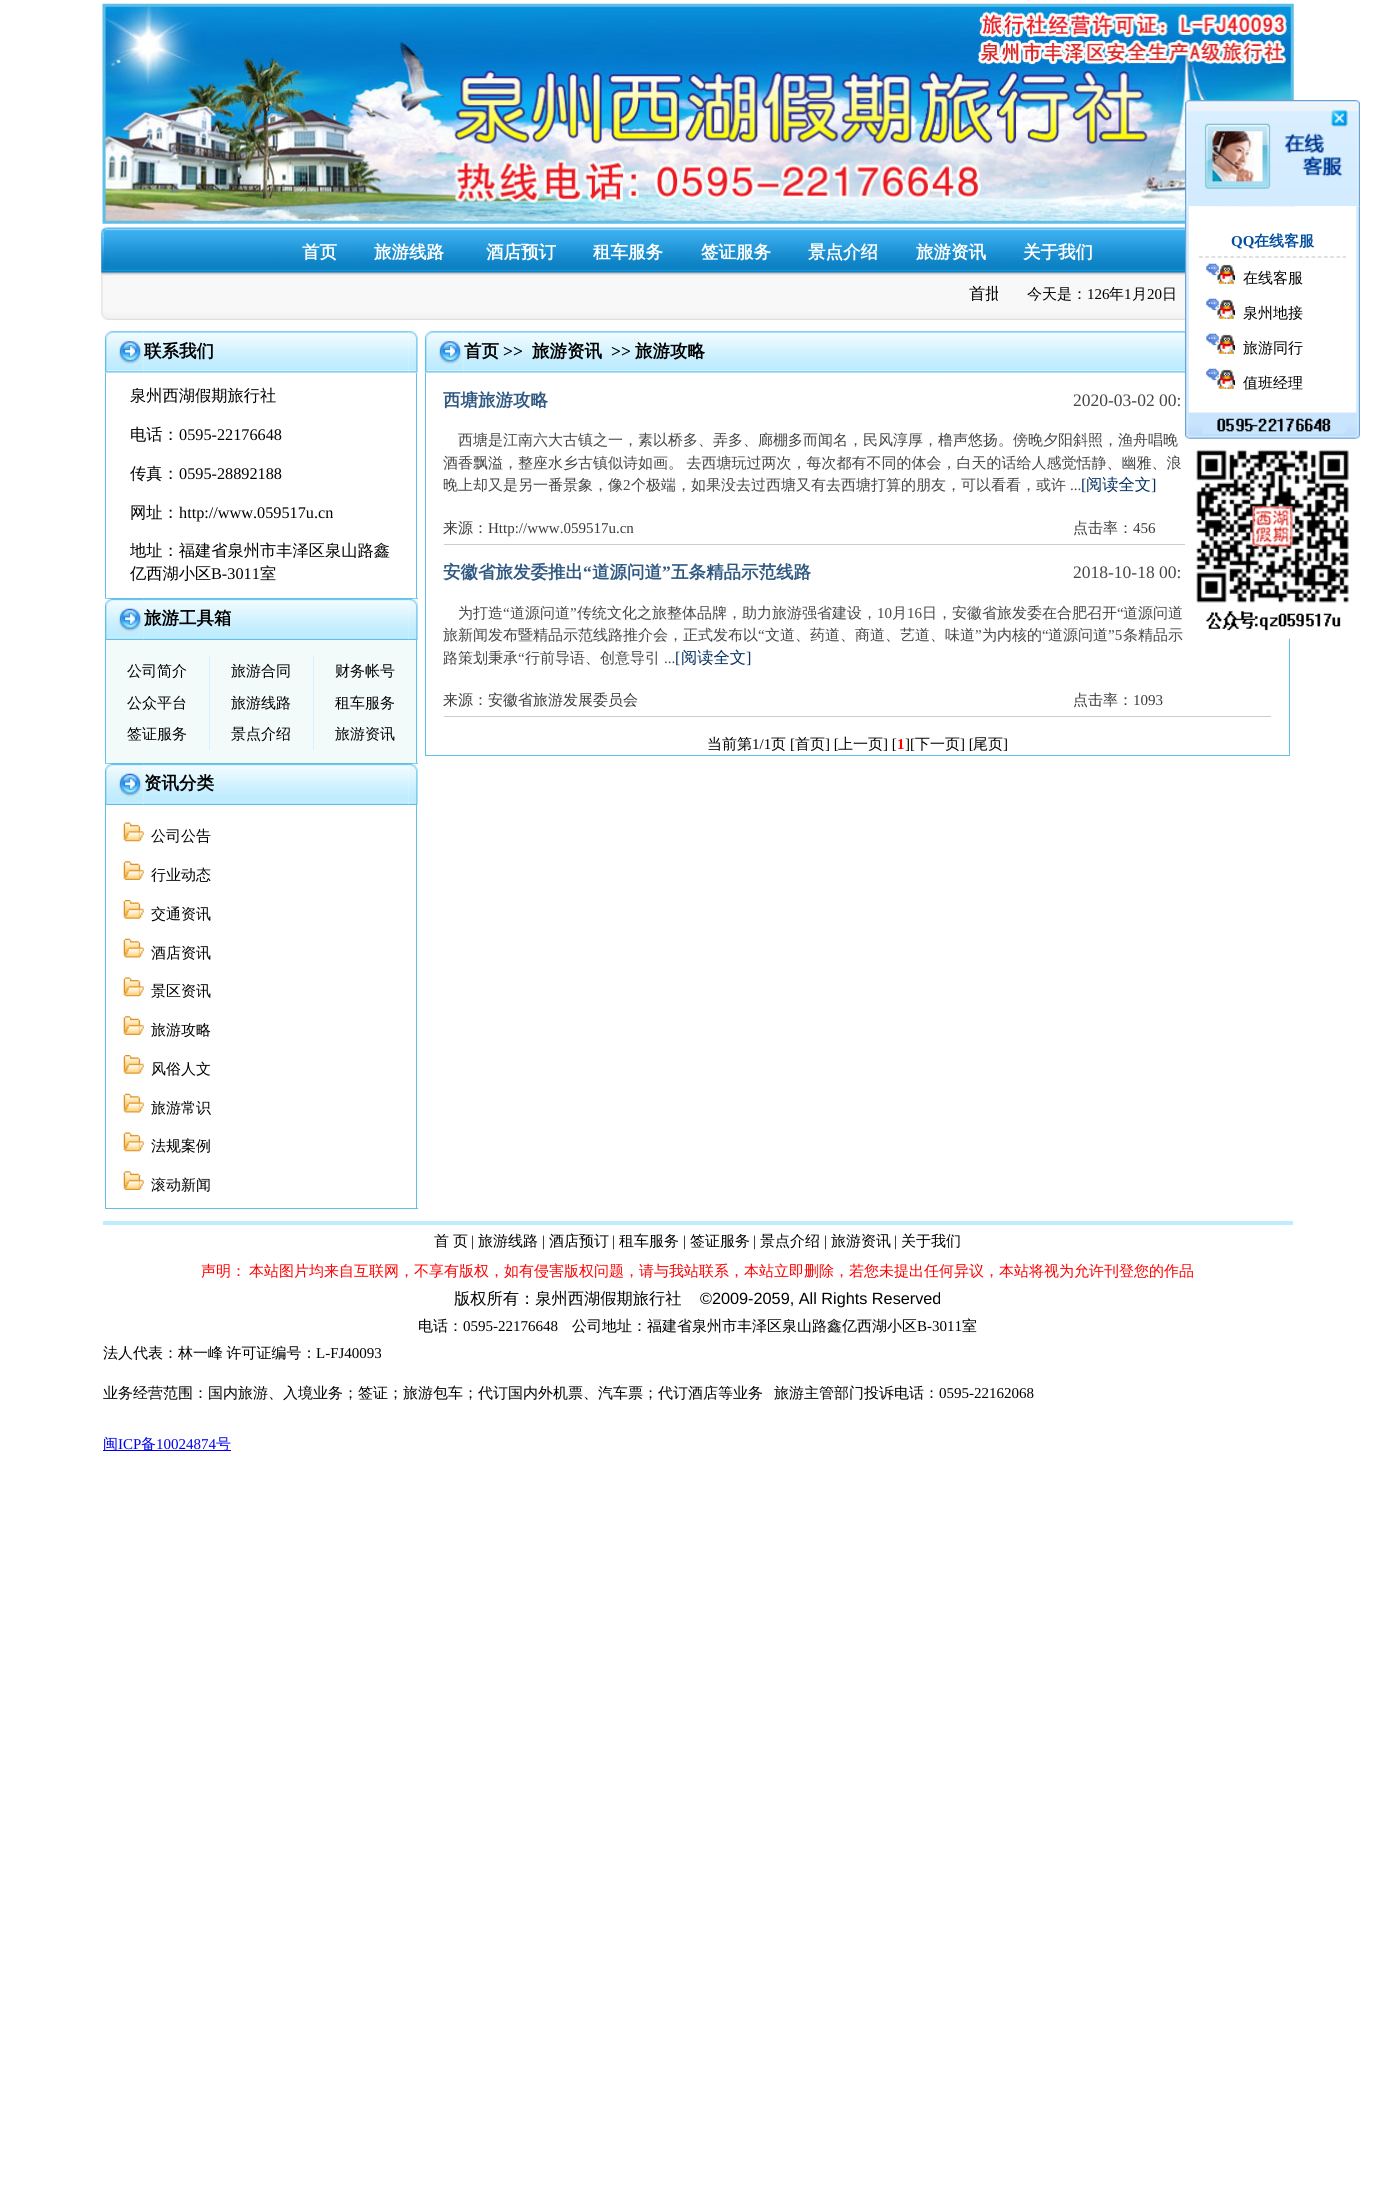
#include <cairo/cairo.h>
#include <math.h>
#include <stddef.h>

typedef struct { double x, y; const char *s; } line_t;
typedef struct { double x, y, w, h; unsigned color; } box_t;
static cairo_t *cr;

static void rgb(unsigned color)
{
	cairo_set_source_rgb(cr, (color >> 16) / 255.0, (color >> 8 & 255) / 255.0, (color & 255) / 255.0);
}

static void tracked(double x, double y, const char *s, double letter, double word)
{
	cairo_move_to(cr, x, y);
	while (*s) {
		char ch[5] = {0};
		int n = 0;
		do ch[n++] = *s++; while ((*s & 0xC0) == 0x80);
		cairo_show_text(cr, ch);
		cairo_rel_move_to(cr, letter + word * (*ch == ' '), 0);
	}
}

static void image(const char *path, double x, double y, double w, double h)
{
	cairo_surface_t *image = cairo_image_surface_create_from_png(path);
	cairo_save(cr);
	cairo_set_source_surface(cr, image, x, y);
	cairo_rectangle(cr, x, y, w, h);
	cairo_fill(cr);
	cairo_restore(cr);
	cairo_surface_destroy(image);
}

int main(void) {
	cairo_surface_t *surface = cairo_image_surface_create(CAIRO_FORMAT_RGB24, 1395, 2188);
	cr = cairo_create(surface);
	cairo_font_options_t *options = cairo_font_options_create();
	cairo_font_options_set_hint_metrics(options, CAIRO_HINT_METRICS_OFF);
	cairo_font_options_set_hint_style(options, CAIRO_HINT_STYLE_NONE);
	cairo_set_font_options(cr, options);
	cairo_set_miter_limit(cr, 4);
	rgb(0xffffff);
	cairo_paint(cr);
	image("img/1.png", 102, 3, 1192, 221);
	image("img/2.png", 101, 227, 9, 93);
	image("img/3.png", 110, 227, 1075, 93);
	image("img/4.png", 1185, 100, 175, 107);
	image("img/5.png", 1185, 206, 175, 204);
	cairo_new_path(cr);
	cairo_move_to(cr, 1199, 257);
	cairo_line_to(cr, 1346, 257);
	rgb(0xcccccc);
	cairo_set_line_width(cr, 1.2);
	cairo_set_dash(cr, (double[]){3.75, 2.5}, 2, 0);
	cairo_stroke(cr);
	image("img/6.png", 1206, 263, 29, 21);
	image("img/6.png", 1206, 298, 29, 21);
	image("img/6.png", 1206, 333, 29, 21);
	image("img/6.png", 1206, 368, 29, 21);
	rgb(0x5fc0e9);
	cairo_rectangle(cr, 1289, 638, 1, 118);
	cairo_fill(cr);
	image("img/7.png", 1185, 410, 175, 229);
	rgb(0xf3fafa);
	cairo_rectangle(cr, 106, 599, 312, 164);
	cairo_fill(cr);
	image("img/9.png", 143, 331, 266, 42);
	image("img/8.png", 105, 331, 39, 42);
	image("img/10.png", 408, 331, 10, 42);
	{
		static const box_t items[] = {
			{416, 373, 1, 226, 0x5fc0e9},
			{105, 598, 313, 1, 0x5fc0e9},
			{105, 373, 1, 226, 0x5fc0e9},
		};
		for (size_t i = 0; i < sizeof items / sizeof *items; i++) {
			rgb(items[i].color);
			cairo_rectangle(cr, items[i].x, items[i].y, items[i].w, items[i].h);
			cairo_fill(cr);
		}
	}
	image("img/12.png", 143, 599, 266, 41);
	image("img/11.png", 105, 598, 39, 42);
	image("img/13.png", 408, 598, 10, 42);
	{
		static const box_t items[] = {
			{416, 640, 1, 124, 0x5fc0e9},
			{105, 763, 313, 1, 0x5fc0e9},
			{105, 640, 1, 124, 0x5fc0e9},
			{209, 656, 1, 94, 0xd5f3fe},
			{313, 656, 1, 94, 0xd5f3fe},
		};
		for (size_t i = 0; i < sizeof items / sizeof *items; i++) {
			rgb(items[i].color);
			cairo_rectangle(cr, items[i].x, items[i].y, items[i].w, items[i].h);
			cairo_fill(cr);
		}
	}
	image("img/15.png", 143, 764, 247, 41);
	image("img/14.png", 105, 763, 39, 42);
	image("img/16.png", 390, 764, 19, 41);
	image("img/17.png", 408, 763, 10, 42);
	{
		static const box_t items[] = {
			{416, 805, 1, 404, 0x5fc0e9},
			{105, 1208, 313, 1, 0x5fc0e9},
			{105, 805, 1, 404, 0x5fc0e9},
		};
		for (size_t i = 0; i < sizeof items / sizeof *items; i++) {
			rgb(items[i].color);
			cairo_rectangle(cr, items[i].x, items[i].y, items[i].w, items[i].h);
			cairo_fill(cr);
		}
	}
	image("img/18.png", 123, 822, 21, 20);
	image("img/19.png", 123, 861, 21, 19);
	image("img/20.png", 123, 900, 21, 19);
	image("img/21.png", 123, 938, 21, 20);
	image("img/18.png", 123, 977, 21, 20);
	image("img/19.png", 123, 1016, 21, 19);
	image("img/20.png", 123, 1055, 21, 19);
	image("img/21.png", 123, 1093, 21, 20);
	image("img/18.png", 123, 1132, 21, 20);
	image("img/22.png", 123, 1171, 21, 19);
	image("img/24.png", 463, 331, 722, 42);
	image("img/23.png", 425, 331, 39, 42);
	{
		static const box_t items[] = {
			{425, 755, 865, 1, 0x5fc0e9},
			{425, 373, 1, 383, 0x5fc0e9},
			{444, 544, 741, 1, 0xcccccc},
			{444, 716, 827, 1, 0xcccccc},
			{103, 1221, 1190, 4, 0xbfecff},
			{103, 1450, 128, 1, 0x0000ee},
		};
		for (size_t i = 0; i < sizeof items / sizeof *items; i++) {
			rgb(items[i].color);
			cairo_rectangle(cr, items[i].x, items[i].y, items[i].w, items[i].h);
			cairo_fill(cr);
		}
	}
	cairo_select_font_face(cr, "WenQuanYi Zen Hei", CAIRO_FONT_SLANT_NORMAL, CAIRO_FONT_WEIGHT_BOLD);
	cairo_set_font_size(cr, 17.5);
	rgb(0xffffff);
	{
		static const line_t items[] = {
			{302, 258, "首页"},
			{374, 258, "旅游线路"},
			{486, 258, "酒店预订"},
			{593, 258, "租车服务"},
			{701, 258, "签证服务"},
			{808, 258, "景点介绍"},
			{916, 258, "旅游资讯"},
			{1023, 258, "关于我们"},
		};
		for (size_t i = 0; i < sizeof items / sizeof *items; i++) {
			cairo_move_to(cr, items[i].x, items[i].y);
			cairo_show_text(cr, items[i].s);
		}
	}
	cairo_save(cr);
	cairo_rectangle(cr, 110, 284, 888, 22);
	cairo_clip(cr);
	cairo_select_font_face(cr, "WenQuanYi Zen Hei Medium", CAIRO_FONT_SLANT_NORMAL, CAIRO_FONT_WEIGHT_NORMAL);
	cairo_set_font_size(cr, 16.25);
	rgb(0x000000);
	cairo_move_to(cr, 969, 299);
	cairo_show_text(cr, "首批");
	cairo_restore(cr);
	cairo_select_font_face(cr, "WenQuanYi Zen Hei Medium", CAIRO_FONT_SLANT_NORMAL, CAIRO_FONT_WEIGHT_NORMAL);
	cairo_set_font_size(cr, 15);
	rgb(0x000000);
	cairo_move_to(cr, 1027, 299);
	cairo_show_text(cr, "今天是：");
	cairo_select_font_face(cr, "Liberation Serif", CAIRO_FONT_SLANT_NORMAL, CAIRO_FONT_WEIGHT_NORMAL);
	cairo_move_to(cr, 1087, 299);
	cairo_show_text(cr, "126");
	cairo_select_font_face(cr, "WenQuanYi Zen Hei Medium", CAIRO_FONT_SLANT_NORMAL, CAIRO_FONT_WEIGHT_NORMAL);
	cairo_move_to(cr, 1109, 299);
	cairo_show_text(cr, "年");
	cairo_select_font_face(cr, "Liberation Serif", CAIRO_FONT_SLANT_NORMAL, CAIRO_FONT_WEIGHT_NORMAL);
	cairo_move_to(cr, 1124, 299);
	cairo_show_text(cr, "1");
	cairo_select_font_face(cr, "WenQuanYi Zen Hei Medium", CAIRO_FONT_SLANT_NORMAL, CAIRO_FONT_WEIGHT_NORMAL);
	cairo_move_to(cr, 1132, 299);
	cairo_show_text(cr, "月");
	cairo_select_font_face(cr, "Liberation Serif", CAIRO_FONT_SLANT_NORMAL, CAIRO_FONT_WEIGHT_NORMAL);
	cairo_move_to(cr, 1147, 299);
	cairo_show_text(cr, "20");
	cairo_select_font_face(cr, "WenQuanYi Zen Hei Medium", CAIRO_FONT_SLANT_NORMAL, CAIRO_FONT_WEIGHT_NORMAL);
	tracked(1162, 299, "日", 0, -1);
	cairo_select_font_face(cr, "Liberation Serif", CAIRO_FONT_SLANT_NORMAL, CAIRO_FONT_WEIGHT_BOLD);
	rgb(0x004d9f);
	cairo_move_to(cr, 1231, 246);
	cairo_show_text(cr, "QQ");
	cairo_select_font_face(cr, "WenQuanYi Zen Hei", CAIRO_FONT_SLANT_NORMAL, CAIRO_FONT_WEIGHT_BOLD);
	cairo_move_to(cr, 1254, 246);
	cairo_show_text(cr, "在线客服");
	cairo_select_font_face(cr, "WenQuanYi Zen Hei Medium", CAIRO_FONT_SLANT_NORMAL, CAIRO_FONT_WEIGHT_NORMAL);
	rgb(0x000000);
	{
		static const line_t items[] = {
			{1243, 283, "在线客服"},
			{1243, 318, "泉州地接"},
			{1243, 353, "旅游同行"},
			{1243, 388, "值班经理"},
		};
		for (size_t i = 0; i < sizeof items / sizeof *items; i++) {
			cairo_move_to(cr, items[i].x, items[i].y);
			cairo_show_text(cr, items[i].s);
		}
	}
	cairo_select_font_face(cr, "WenQuanYi Zen Hei", CAIRO_FONT_SLANT_NORMAL, CAIRO_FONT_WEIGHT_BOLD);
	cairo_set_font_size(cr, 17.5);
	cairo_move_to(cr, 144, 357);
	cairo_show_text(cr, "联系我们");
	cairo_select_font_face(cr, "WenQuanYi Zen Hei Medium", CAIRO_FONT_SLANT_NORMAL, CAIRO_FONT_WEIGHT_NORMAL);
	cairo_set_font_size(cr, 16.25);
	cairo_move_to(cr, 130, 401);
	cairo_show_text(cr, "泉州西湖假期旅行社");
	cairo_move_to(cr, 130, 440);
	cairo_show_text(cr, "电话：");
	cairo_select_font_face(cr, "Liberation Serif", CAIRO_FONT_SLANT_NORMAL, CAIRO_FONT_WEIGHT_NORMAL);
	cairo_move_to(cr, 179, 440);
	cairo_show_text(cr, "0595-22176648");
	cairo_select_font_face(cr, "WenQuanYi Zen Hei Medium", CAIRO_FONT_SLANT_NORMAL, CAIRO_FONT_WEIGHT_NORMAL);
	cairo_move_to(cr, 130, 479);
	cairo_show_text(cr, "传真：");
	cairo_select_font_face(cr, "Liberation Serif", CAIRO_FONT_SLANT_NORMAL, CAIRO_FONT_WEIGHT_NORMAL);
	cairo_move_to(cr, 179, 479);
	cairo_show_text(cr, "0595-28892188");
	cairo_select_font_face(cr, "WenQuanYi Zen Hei Medium", CAIRO_FONT_SLANT_NORMAL, CAIRO_FONT_WEIGHT_NORMAL);
	cairo_move_to(cr, 130, 518);
	cairo_show_text(cr, "网址：");
	cairo_select_font_face(cr, "Liberation Serif", CAIRO_FONT_SLANT_NORMAL, CAIRO_FONT_WEIGHT_NORMAL);
	cairo_move_to(cr, 179, 518);
	cairo_show_text(cr, "http://www.059517u.cn");
	cairo_select_font_face(cr, "WenQuanYi Zen Hei Medium", CAIRO_FONT_SLANT_NORMAL, CAIRO_FONT_WEIGHT_NORMAL);
	cairo_move_to(cr, 130, 556);
	cairo_show_text(cr, "地址：福建省泉州市丰泽区泉山路鑫");
	cairo_move_to(cr, 130, 579);
	cairo_show_text(cr, "亿西湖小区");
	cairo_select_font_face(cr, "Liberation Serif", CAIRO_FONT_SLANT_NORMAL, CAIRO_FONT_WEIGHT_NORMAL);
	cairo_move_to(cr, 211, 579);
	cairo_show_text(cr, "B-3011");
	cairo_select_font_face(cr, "WenQuanYi Zen Hei Medium", CAIRO_FONT_SLANT_NORMAL, CAIRO_FONT_WEIGHT_NORMAL);
	cairo_move_to(cr, 260, 579);
	cairo_show_text(cr, "室");
	cairo_select_font_face(cr, "WenQuanYi Zen Hei", CAIRO_FONT_SLANT_NORMAL, CAIRO_FONT_WEIGHT_BOLD);
	cairo_set_font_size(cr, 17.5);
	cairo_move_to(cr, 144, 624);
	cairo_show_text(cr, "旅游工具箱");
	cairo_select_font_face(cr, "WenQuanYi Zen Hei Medium", CAIRO_FONT_SLANT_NORMAL, CAIRO_FONT_WEIGHT_NORMAL);
	cairo_set_font_size(cr, 15);
	{
		static const line_t items[] = {
			{127, 676, "公司简介"},
			{231, 676, "旅游合同"},
			{335, 676, "财务帐号"},
			{127, 708, "公众平台"},
			{231, 708, "旅游线路"},
			{335, 708, "租车服务"},
			{127, 739, "签证服务"},
			{231, 739, "景点介绍"},
			{335, 739, "旅游资讯"},
		};
		for (size_t i = 0; i < sizeof items / sizeof *items; i++) {
			cairo_move_to(cr, items[i].x, items[i].y);
			cairo_show_text(cr, items[i].s);
		}
	}
	cairo_select_font_face(cr, "WenQuanYi Zen Hei", CAIRO_FONT_SLANT_NORMAL, CAIRO_FONT_WEIGHT_BOLD);
	cairo_set_font_size(cr, 17.5);
	cairo_move_to(cr, 144, 789);
	cairo_show_text(cr, "资讯分类");
	cairo_select_font_face(cr, "WenQuanYi Zen Hei Medium", CAIRO_FONT_SLANT_NORMAL, CAIRO_FONT_WEIGHT_NORMAL);
	cairo_set_font_size(cr, 15);
	{
		static const line_t items[] = {
			{151, 841, "公司公告"},
			{151, 880, "行业动态"},
			{151, 919, "交通资讯"},
			{151, 958, "酒店资讯"},
			{151, 996, "景区资讯"},
			{151, 1035, "旅游攻略"},
			{151, 1074, "风俗人文"},
			{151, 1113, "旅游常识"},
			{151, 1151, "法规案例"},
			{151, 1190, "滚动新闻"},
		};
		for (size_t i = 0; i < sizeof items / sizeof *items; i++) {
			cairo_move_to(cr, items[i].x, items[i].y);
			cairo_show_text(cr, items[i].s);
		}
	}
	cairo_select_font_face(cr, "WenQuanYi Zen Hei", CAIRO_FONT_SLANT_NORMAL, CAIRO_FONT_WEIGHT_BOLD);
	cairo_set_font_size(cr, 17.5);
	cairo_move_to(cr, 464, 357);
	cairo_show_text(cr, "首页");
	cairo_select_font_face(cr, "Liberation Serif", CAIRO_FONT_SLANT_NORMAL, CAIRO_FONT_WEIGHT_BOLD);
	cairo_move_to(cr, 503, 357);
	cairo_show_text(cr, ">>");
	cairo_select_font_face(cr, "WenQuanYi Zen Hei", CAIRO_FONT_SLANT_NORMAL, CAIRO_FONT_WEIGHT_BOLD);
	cairo_move_to(cr, 532, 357);
	cairo_show_text(cr, "旅游资讯");
	cairo_select_font_face(cr, "Liberation Serif", CAIRO_FONT_SLANT_NORMAL, CAIRO_FONT_WEIGHT_BOLD);
	cairo_move_to(cr, 611, 357);
	cairo_show_text(cr, ">>");
	cairo_select_font_face(cr, "WenQuanYi Zen Hei", CAIRO_FONT_SLANT_NORMAL, CAIRO_FONT_WEIGHT_BOLD);
	cairo_move_to(cr, 635, 357);
	cairo_show_text(cr, "旅游攻略");
	rgb(0x305982);
	cairo_move_to(cr, 443, 406);
	cairo_show_text(cr, "西塘旅游攻略");
	cairo_select_font_face(cr, "Liberation Serif", CAIRO_FONT_SLANT_NORMAL, CAIRO_FONT_WEIGHT_NORMAL);
	rgb(0x454545);
	cairo_move_to(cr, 1073, 406);
	cairo_show_text(cr, "2020-03-02 00:");
	cairo_select_font_face(cr, "WenQuanYi Zen Hei Medium", CAIRO_FONT_SLANT_NORMAL, CAIRO_FONT_WEIGHT_NORMAL);
	cairo_set_font_size(cr, 15);
	cairo_move_to(cr, 458, 445);
	cairo_show_text(cr, "西塘是江南六大古镇之一，素以桥多、弄多、廊棚多而闻名，民风淳厚，橹声悠扬。傍晚夕阳斜照，渔舟唱晚");
	tracked(443, 468, "酒香飘溢，整座水乡古镇似诗如画。 去西塘玩过两次，每次都有不同的体会，白天的话给人感觉恬静、幽雅、浪", 0, -1);
	cairo_move_to(cr, 443, 490);
	cairo_show_text(cr, "晚上却又是另一番景象，像");
	cairo_select_font_face(cr, "Liberation Serif", CAIRO_FONT_SLANT_NORMAL, CAIRO_FONT_WEIGHT_NORMAL);
	cairo_move_to(cr, 623, 490);
	cairo_show_text(cr, "2");
	cairo_select_font_face(cr, "WenQuanYi Zen Hei Medium", CAIRO_FONT_SLANT_NORMAL, CAIRO_FONT_WEIGHT_NORMAL);
	cairo_move_to(cr, 631, 490);
	cairo_show_text(cr, "个极端，如果没去过西塘又有去西塘打算的朋友，可以看看，或许");
	cairo_select_font_face(cr, "Liberation Serif", CAIRO_FONT_SLANT_NORMAL, CAIRO_FONT_WEIGHT_NORMAL);
	cairo_move_to(cr, 1070, 490);
	cairo_show_text(cr, "...");
	cairo_set_font_size(cr, 16.25);
	rgb(0x043060);
	cairo_move_to(cr, 1081, 490);
	cairo_show_text(cr, "[");
	cairo_select_font_face(cr, "WenQuanYi Zen Hei Medium", CAIRO_FONT_SLANT_NORMAL, CAIRO_FONT_WEIGHT_NORMAL);
	cairo_move_to(cr, 1086, 490);
	cairo_show_text(cr, "阅读全文");
	cairo_select_font_face(cr, "Liberation Serif", CAIRO_FONT_SLANT_NORMAL, CAIRO_FONT_WEIGHT_NORMAL);
	cairo_move_to(cr, 1151, 490);
	cairo_show_text(cr, "]");
	cairo_select_font_face(cr, "WenQuanYi Zen Hei Medium", CAIRO_FONT_SLANT_NORMAL, CAIRO_FONT_WEIGHT_NORMAL);
	cairo_set_font_size(cr, 15);
	rgb(0x3a3a3a);
	cairo_move_to(cr, 443, 533);
	cairo_show_text(cr, "来源：");
	cairo_select_font_face(cr, "Liberation Serif", CAIRO_FONT_SLANT_NORMAL, CAIRO_FONT_WEIGHT_NORMAL);
	cairo_move_to(cr, 488, 533);
	cairo_show_text(cr, "Http://www.059517u.cn");
	cairo_select_font_face(cr, "WenQuanYi Zen Hei Medium", CAIRO_FONT_SLANT_NORMAL, CAIRO_FONT_WEIGHT_NORMAL);
	cairo_move_to(cr, 1073, 533);
	cairo_show_text(cr, "点击率：");
	cairo_select_font_face(cr, "Liberation Serif", CAIRO_FONT_SLANT_NORMAL, CAIRO_FONT_WEIGHT_NORMAL);
	cairo_move_to(cr, 1133, 533);
	cairo_show_text(cr, "456");
	cairo_select_font_face(cr, "WenQuanYi Zen Hei", CAIRO_FONT_SLANT_NORMAL, CAIRO_FONT_WEIGHT_BOLD);
	cairo_set_font_size(cr, 17.5);
	rgb(0x305982);
	cairo_move_to(cr, 443, 578);
	cairo_show_text(cr, "安徽省旅发委推出");
	cairo_select_font_face(cr, "Liberation Serif", CAIRO_FONT_SLANT_NORMAL, CAIRO_FONT_WEIGHT_BOLD);
	cairo_move_to(cr, 583, 578);
	cairo_show_text(cr, "“");
	cairo_select_font_face(cr, "WenQuanYi Zen Hei", CAIRO_FONT_SLANT_NORMAL, CAIRO_FONT_WEIGHT_BOLD);
	cairo_move_to(cr, 592, 578);
	cairo_show_text(cr, "道源问道");
	cairo_select_font_face(cr, "Liberation Serif", CAIRO_FONT_SLANT_NORMAL, CAIRO_FONT_WEIGHT_BOLD);
	cairo_move_to(cr, 662, 578);
	cairo_show_text(cr, "”");
	cairo_select_font_face(cr, "WenQuanYi Zen Hei", CAIRO_FONT_SLANT_NORMAL, CAIRO_FONT_WEIGHT_BOLD);
	cairo_move_to(cr, 671, 578);
	cairo_show_text(cr, "五条精品示范线路");
	cairo_select_font_face(cr, "Liberation Serif", CAIRO_FONT_SLANT_NORMAL, CAIRO_FONT_WEIGHT_NORMAL);
	rgb(0x454545);
	cairo_move_to(cr, 1073, 578);
	cairo_show_text(cr, "2018-10-18 00:");
	cairo_select_font_face(cr, "WenQuanYi Zen Hei Medium", CAIRO_FONT_SLANT_NORMAL, CAIRO_FONT_WEIGHT_NORMAL);
	cairo_set_font_size(cr, 15);
	cairo_move_to(cr, 458, 618);
	cairo_show_text(cr, "为打造");
	cairo_select_font_face(cr, "Liberation Serif", CAIRO_FONT_SLANT_NORMAL, CAIRO_FONT_WEIGHT_NORMAL);
	cairo_move_to(cr, 503, 618);
	cairo_show_text(cr, "“");
	cairo_select_font_face(cr, "WenQuanYi Zen Hei Medium", CAIRO_FONT_SLANT_NORMAL, CAIRO_FONT_WEIGHT_NORMAL);
	cairo_move_to(cr, 510, 618);
	cairo_show_text(cr, "道源问道");
	cairo_select_font_face(cr, "Liberation Serif", CAIRO_FONT_SLANT_NORMAL, CAIRO_FONT_WEIGHT_NORMAL);
	cairo_move_to(cr, 570, 618);
	cairo_show_text(cr, "”");
	cairo_select_font_face(cr, "WenQuanYi Zen Hei Medium", CAIRO_FONT_SLANT_NORMAL, CAIRO_FONT_WEIGHT_NORMAL);
	cairo_move_to(cr, 577, 618);
	cairo_show_text(cr, "传统文化之旅整体品牌，助力旅游强省建设，");
	cairo_select_font_face(cr, "Liberation Serif", CAIRO_FONT_SLANT_NORMAL, CAIRO_FONT_WEIGHT_NORMAL);
	cairo_move_to(cr, 877, 618);
	cairo_show_text(cr, "10");
	cairo_select_font_face(cr, "WenQuanYi Zen Hei Medium", CAIRO_FONT_SLANT_NORMAL, CAIRO_FONT_WEIGHT_NORMAL);
	cairo_move_to(cr, 892, 618);
	cairo_show_text(cr, "月");
	cairo_select_font_face(cr, "Liberation Serif", CAIRO_FONT_SLANT_NORMAL, CAIRO_FONT_WEIGHT_NORMAL);
	cairo_move_to(cr, 907, 618);
	cairo_show_text(cr, "16");
	cairo_select_font_face(cr, "WenQuanYi Zen Hei Medium", CAIRO_FONT_SLANT_NORMAL, CAIRO_FONT_WEIGHT_NORMAL);
	cairo_move_to(cr, 922, 618);
	cairo_show_text(cr, "日，安徽省旅发委在合肥召开");
	cairo_select_font_face(cr, "Liberation Serif", CAIRO_FONT_SLANT_NORMAL, CAIRO_FONT_WEIGHT_NORMAL);
	cairo_move_to(cr, 1117, 618);
	cairo_show_text(cr, "“");
	cairo_select_font_face(cr, "WenQuanYi Zen Hei Medium", CAIRO_FONT_SLANT_NORMAL, CAIRO_FONT_WEIGHT_NORMAL);
	cairo_move_to(cr, 1123, 618);
	cairo_show_text(cr, "道源问道");
	cairo_move_to(cr, 443, 640);
	cairo_show_text(cr, "旅新闻发布暨精品示范线路推介会，正式发布以");
	cairo_select_font_face(cr, "Liberation Serif", CAIRO_FONT_SLANT_NORMAL, CAIRO_FONT_WEIGHT_NORMAL);
	cairo_move_to(cr, 758, 640);
	cairo_show_text(cr, "“");
	cairo_select_font_face(cr, "WenQuanYi Zen Hei Medium", CAIRO_FONT_SLANT_NORMAL, CAIRO_FONT_WEIGHT_NORMAL);
	cairo_move_to(cr, 765, 640);
	cairo_show_text(cr, "文道、药道、商道、艺道、味道");
	cairo_select_font_face(cr, "Liberation Serif", CAIRO_FONT_SLANT_NORMAL, CAIRO_FONT_WEIGHT_NORMAL);
	cairo_move_to(cr, 975, 640);
	cairo_show_text(cr, "”");
	cairo_select_font_face(cr, "WenQuanYi Zen Hei Medium", CAIRO_FONT_SLANT_NORMAL, CAIRO_FONT_WEIGHT_NORMAL);
	cairo_move_to(cr, 982, 640);
	cairo_show_text(cr, "为内核的");
	cairo_select_font_face(cr, "Liberation Serif", CAIRO_FONT_SLANT_NORMAL, CAIRO_FONT_WEIGHT_NORMAL);
	cairo_move_to(cr, 1042, 640);
	cairo_show_text(cr, "“");
	cairo_select_font_face(cr, "WenQuanYi Zen Hei Medium", CAIRO_FONT_SLANT_NORMAL, CAIRO_FONT_WEIGHT_NORMAL);
	cairo_move_to(cr, 1048, 640);
	cairo_show_text(cr, "道源问道");
	cairo_select_font_face(cr, "Liberation Serif", CAIRO_FONT_SLANT_NORMAL, CAIRO_FONT_WEIGHT_NORMAL);
	cairo_move_to(cr, 1108, 640);
	cairo_show_text(cr, "”5");
	cairo_select_font_face(cr, "WenQuanYi Zen Hei Medium", CAIRO_FONT_SLANT_NORMAL, CAIRO_FONT_WEIGHT_NORMAL);
	cairo_move_to(cr, 1123, 640);
	cairo_show_text(cr, "条精品示");
	cairo_move_to(cr, 443, 663);
	cairo_show_text(cr, "路策划秉承");
	cairo_select_font_face(cr, "Liberation Serif", CAIRO_FONT_SLANT_NORMAL, CAIRO_FONT_WEIGHT_NORMAL);
	cairo_move_to(cr, 518, 663);
	cairo_show_text(cr, "“");
	cairo_select_font_face(cr, "WenQuanYi Zen Hei Medium", CAIRO_FONT_SLANT_NORMAL, CAIRO_FONT_WEIGHT_NORMAL);
	cairo_move_to(cr, 525, 663);
	cairo_show_text(cr, "行前导语、创意导引");
	cairo_select_font_face(cr, "Liberation Serif", CAIRO_FONT_SLANT_NORMAL, CAIRO_FONT_WEIGHT_NORMAL);
	cairo_set_font_size(cr, 16.25);
	rgb(0x043060);
	cairo_move_to(cr, 675, 663);
	cairo_show_text(cr, "[");
	cairo_select_font_face(cr, "WenQuanYi Zen Hei Medium", CAIRO_FONT_SLANT_NORMAL, CAIRO_FONT_WEIGHT_NORMAL);
	cairo_move_to(cr, 681, 663);
	cairo_show_text(cr, "阅读全文");
	cairo_select_font_face(cr, "Liberation Serif", CAIRO_FONT_SLANT_NORMAL, CAIRO_FONT_WEIGHT_NORMAL);
	cairo_move_to(cr, 746, 663);
	cairo_show_text(cr, "]");
	cairo_set_font_size(cr, 15);
	rgb(0x454545);
	cairo_move_to(cr, 664, 663);
	cairo_show_text(cr, "...");
	cairo_select_font_face(cr, "WenQuanYi Zen Hei Medium", CAIRO_FONT_SLANT_NORMAL, CAIRO_FONT_WEIGHT_NORMAL);
	rgb(0x3a3a3a);
	cairo_move_to(cr, 443, 705);
	cairo_show_text(cr, "来源：安徽省旅游发展委员会");
	cairo_move_to(cr, 1073, 705);
	cairo_show_text(cr, "点击率：");
	cairo_select_font_face(cr, "Liberation Serif", CAIRO_FONT_SLANT_NORMAL, CAIRO_FONT_WEIGHT_NORMAL);
	cairo_move_to(cr, 1133, 705);
	cairo_show_text(cr, "1093");
	cairo_select_font_face(cr, "WenQuanYi Zen Hei Medium", CAIRO_FONT_SLANT_NORMAL, CAIRO_FONT_WEIGHT_NORMAL);
	rgb(0x000000);
	cairo_move_to(cr, 707, 749);
	cairo_show_text(cr, "当前第");
	cairo_select_font_face(cr, "Liberation Serif", CAIRO_FONT_SLANT_NORMAL, CAIRO_FONT_WEIGHT_NORMAL);
	cairo_move_to(cr, 752, 749);
	cairo_show_text(cr, "1/1");
	cairo_select_font_face(cr, "WenQuanYi Zen Hei Medium", CAIRO_FONT_SLANT_NORMAL, CAIRO_FONT_WEIGHT_NORMAL);
	cairo_move_to(cr, 771, 749);
	cairo_show_text(cr, "页");
	cairo_select_font_face(cr, "Liberation Serif", CAIRO_FONT_SLANT_NORMAL, CAIRO_FONT_WEIGHT_NORMAL);
	cairo_move_to(cr, 790, 749);
	cairo_show_text(cr, "[");
	cairo_select_font_face(cr, "WenQuanYi Zen Hei Medium", CAIRO_FONT_SLANT_NORMAL, CAIRO_FONT_WEIGHT_NORMAL);
	cairo_move_to(cr, 795, 749);
	cairo_show_text(cr, "首页");
	cairo_select_font_face(cr, "Liberation Serif", CAIRO_FONT_SLANT_NORMAL, CAIRO_FONT_WEIGHT_NORMAL);
	cairo_move_to(cr, 825, 749);
	cairo_show_text(cr, "] [");
	cairo_select_font_face(cr, "WenQuanYi Zen Hei Medium", CAIRO_FONT_SLANT_NORMAL, CAIRO_FONT_WEIGHT_NORMAL);
	cairo_move_to(cr, 838, 749);
	cairo_show_text(cr, "上一页");
	cairo_select_font_face(cr, "Liberation Serif", CAIRO_FONT_SLANT_NORMAL, CAIRO_FONT_WEIGHT_NORMAL);
	cairo_move_to(cr, 883, 749);
	cairo_show_text(cr, "] [");
	cairo_select_font_face(cr, "Liberation Serif", CAIRO_FONT_SLANT_NORMAL, CAIRO_FONT_WEIGHT_BOLD);
	rgb(0xff0000);
	cairo_move_to(cr, 897, 749);
	cairo_show_text(cr, "1");
	cairo_select_font_face(cr, "Liberation Serif", CAIRO_FONT_SLANT_NORMAL, CAIRO_FONT_WEIGHT_NORMAL);
	rgb(0x000000);
	cairo_move_to(cr, 905, 749);
	cairo_show_text(cr, "][");
	cairo_select_font_face(cr, "WenQuanYi Zen Hei Medium", CAIRO_FONT_SLANT_NORMAL, CAIRO_FONT_WEIGHT_NORMAL);
	cairo_move_to(cr, 915, 749);
	cairo_show_text(cr, "下一页");
	cairo_select_font_face(cr, "Liberation Serif", CAIRO_FONT_SLANT_NORMAL, CAIRO_FONT_WEIGHT_NORMAL);
	cairo_move_to(cr, 960, 749);
	cairo_show_text(cr, "] [");
	cairo_select_font_face(cr, "WenQuanYi Zen Hei Medium", CAIRO_FONT_SLANT_NORMAL, CAIRO_FONT_WEIGHT_NORMAL);
	cairo_move_to(cr, 973, 749);
	cairo_show_text(cr, "尾页");
	cairo_select_font_face(cr, "Liberation Serif", CAIRO_FONT_SLANT_NORMAL, CAIRO_FONT_WEIGHT_NORMAL);
	cairo_move_to(cr, 1003, 749);
	cairo_show_text(cr, "]");
	cairo_select_font_face(cr, "WenQuanYi Zen Hei Medium", CAIRO_FONT_SLANT_NORMAL, CAIRO_FONT_WEIGHT_NORMAL);
	cairo_move_to(cr, 434, 1246);
	cairo_show_text(cr, "首");
	cairo_move_to(cr, 453, 1246);
	cairo_show_text(cr, "页");
	cairo_select_font_face(cr, "Liberation Serif", CAIRO_FONT_SLANT_NORMAL, CAIRO_FONT_WEIGHT_NORMAL);
	cairo_move_to(cr, 471, 1246);
	cairo_show_text(cr, "|");
	cairo_select_font_face(cr, "WenQuanYi Zen Hei Medium", CAIRO_FONT_SLANT_NORMAL, CAIRO_FONT_WEIGHT_NORMAL);
	cairo_move_to(cr, 478, 1246);
	cairo_show_text(cr, "旅游线路");
	cairo_select_font_face(cr, "Liberation Serif", CAIRO_FONT_SLANT_NORMAL, CAIRO_FONT_WEIGHT_NORMAL);
	cairo_move_to(cr, 542, 1246);
	cairo_show_text(cr, "|");
	cairo_select_font_face(cr, "WenQuanYi Zen Hei Medium", CAIRO_FONT_SLANT_NORMAL, CAIRO_FONT_WEIGHT_NORMAL);
	cairo_move_to(cr, 549, 1246);
	cairo_show_text(cr, "酒店预订");
	cairo_select_font_face(cr, "Liberation Serif", CAIRO_FONT_SLANT_NORMAL, CAIRO_FONT_WEIGHT_NORMAL);
	cairo_move_to(cr, 612, 1246);
	cairo_show_text(cr, "|");
	cairo_select_font_face(cr, "WenQuanYi Zen Hei Medium", CAIRO_FONT_SLANT_NORMAL, CAIRO_FONT_WEIGHT_NORMAL);
	cairo_move_to(cr, 619, 1246);
	cairo_show_text(cr, "租车服务");
	cairo_select_font_face(cr, "Liberation Serif", CAIRO_FONT_SLANT_NORMAL, CAIRO_FONT_WEIGHT_NORMAL);
	cairo_move_to(cr, 683, 1246);
	cairo_show_text(cr, "|");
	cairo_select_font_face(cr, "WenQuanYi Zen Hei Medium", CAIRO_FONT_SLANT_NORMAL, CAIRO_FONT_WEIGHT_NORMAL);
	cairo_move_to(cr, 690, 1246);
	cairo_show_text(cr, "签证服务");
	cairo_select_font_face(cr, "Liberation Serif", CAIRO_FONT_SLANT_NORMAL, CAIRO_FONT_WEIGHT_NORMAL);
	cairo_move_to(cr, 753, 1246);
	cairo_show_text(cr, "|");
	cairo_select_font_face(cr, "WenQuanYi Zen Hei Medium", CAIRO_FONT_SLANT_NORMAL, CAIRO_FONT_WEIGHT_NORMAL);
	cairo_move_to(cr, 760, 1246);
	cairo_show_text(cr, "景点介绍");
	cairo_select_font_face(cr, "Liberation Serif", CAIRO_FONT_SLANT_NORMAL, CAIRO_FONT_WEIGHT_NORMAL);
	cairo_move_to(cr, 824, 1246);
	cairo_show_text(cr, "|");
	cairo_select_font_face(cr, "WenQuanYi Zen Hei Medium", CAIRO_FONT_SLANT_NORMAL, CAIRO_FONT_WEIGHT_NORMAL);
	cairo_move_to(cr, 831, 1246);
	cairo_show_text(cr, "旅游资讯");
	cairo_select_font_face(cr, "Liberation Serif", CAIRO_FONT_SLANT_NORMAL, CAIRO_FONT_WEIGHT_NORMAL);
	cairo_move_to(cr, 894, 1246);
	cairo_show_text(cr, "|");
	cairo_select_font_face(cr, "WenQuanYi Zen Hei Medium", CAIRO_FONT_SLANT_NORMAL, CAIRO_FONT_WEIGHT_NORMAL);
	cairo_move_to(cr, 901, 1246);
	cairo_show_text(cr, "关于我们");
	rgb(0xff0000);
	cairo_move_to(cr, 201, 1276);
	cairo_show_text(cr, "声明：");
	cairo_move_to(cr, 249, 1276);
	cairo_show_text(cr, "本站图片均来自互联网，不享有版权，如有侵害版权问题，请与我站联系，本站立即删除，若您未提出任何异议，本站将视为允许刊登您的作品");
	cairo_set_font_size(cr, 16.25);
	rgb(0x000000);
	cairo_move_to(cr, 454, 1304);
	cairo_show_text(cr, "版权所有：泉州西湖假期旅行社");
	cairo_select_font_face(cr, "Liberation Sans", CAIRO_FONT_SLANT_NORMAL, CAIRO_FONT_WEIGHT_NORMAL);
	cairo_move_to(cr, 700, 1304);
	cairo_show_text(cr, "©2009-2059, All Rights Reserved");
	cairo_select_font_face(cr, "WenQuanYi Zen Hei Medium", CAIRO_FONT_SLANT_NORMAL, CAIRO_FONT_WEIGHT_NORMAL);
	cairo_set_font_size(cr, 15);
	cairo_move_to(cr, 418, 1331);
	cairo_show_text(cr, "电话：");
	cairo_select_font_face(cr, "Liberation Serif", CAIRO_FONT_SLANT_NORMAL, CAIRO_FONT_WEIGHT_NORMAL);
	cairo_move_to(cr, 463, 1331);
	cairo_show_text(cr, "0595-22176648");
	cairo_select_font_face(cr, "WenQuanYi Zen Hei Medium", CAIRO_FONT_SLANT_NORMAL, CAIRO_FONT_WEIGHT_NORMAL);
	cairo_move_to(cr, 572, 1331);
	cairo_show_text(cr, "公司地址：福建省泉州市丰泽区泉山路鑫亿西湖小区");
	cairo_select_font_face(cr, "Liberation Serif", CAIRO_FONT_SLANT_NORMAL, CAIRO_FONT_WEIGHT_NORMAL);
	cairo_move_to(cr, 917, 1331);
	cairo_show_text(cr, "B-3011");
	cairo_select_font_face(cr, "WenQuanYi Zen Hei Medium", CAIRO_FONT_SLANT_NORMAL, CAIRO_FONT_WEIGHT_NORMAL);
	cairo_move_to(cr, 962, 1331);
	cairo_show_text(cr, "室");
	tracked(103, 1358, "法人代表：林一峰 许可证编号：", 0, -1);
	cairo_select_font_face(cr, "Liberation Serif", CAIRO_FONT_SLANT_NORMAL, CAIRO_FONT_WEIGHT_NORMAL);
	cairo_move_to(cr, 316, 1358);
	cairo_show_text(cr, "L-FJ40093");
	cairo_select_font_face(cr, "WenQuanYi Zen Hei Medium", CAIRO_FONT_SLANT_NORMAL, CAIRO_FONT_WEIGHT_NORMAL);
	cairo_move_to(cr, 103, 1398);
	cairo_show_text(cr, "业务经营范围：国内旅游、入境业务；签证；旅游包车；代订国内外机票、汽车票；代订酒店等业务");
	cairo_move_to(cr, 774, 1398);
	cairo_show_text(cr, "旅游主管部门投诉电话：");
	cairo_select_font_face(cr, "Liberation Serif", CAIRO_FONT_SLANT_NORMAL, CAIRO_FONT_WEIGHT_NORMAL);
	cairo_move_to(cr, 939, 1398);
	cairo_show_text(cr, "0595-22162068");
	cairo_select_font_face(cr, "WenQuanYi Zen Hei Medium", CAIRO_FONT_SLANT_NORMAL, CAIRO_FONT_WEIGHT_NORMAL);
	rgb(0x0000ee);
	cairo_move_to(cr, 103, 1449);
	cairo_show_text(cr, "闽");
	cairo_select_font_face(cr, "Liberation Serif", CAIRO_FONT_SLANT_NORMAL, CAIRO_FONT_WEIGHT_NORMAL);
	cairo_move_to(cr, 118, 1449);
	cairo_show_text(cr, "ICP");
	cairo_select_font_face(cr, "WenQuanYi Zen Hei Medium", CAIRO_FONT_SLANT_NORMAL, CAIRO_FONT_WEIGHT_NORMAL);
	cairo_move_to(cr, 141, 1449);
	cairo_show_text(cr, "备");
	cairo_select_font_face(cr, "Liberation Serif", CAIRO_FONT_SLANT_NORMAL, CAIRO_FONT_WEIGHT_NORMAL);
	cairo_move_to(cr, 156, 1449);
	cairo_show_text(cr, "10024874");
	cairo_select_font_face(cr, "WenQuanYi Zen Hei Medium", CAIRO_FONT_SLANT_NORMAL, CAIRO_FONT_WEIGHT_NORMAL);
	cairo_move_to(cr, 216, 1449);
	cairo_show_text(cr, "号");
	cairo_surface_write_to_png(surface, "page.png");
	cairo_font_options_destroy(options);
	cairo_destroy(cr);
	cairo_surface_destroy(surface);
	return 0;
}
